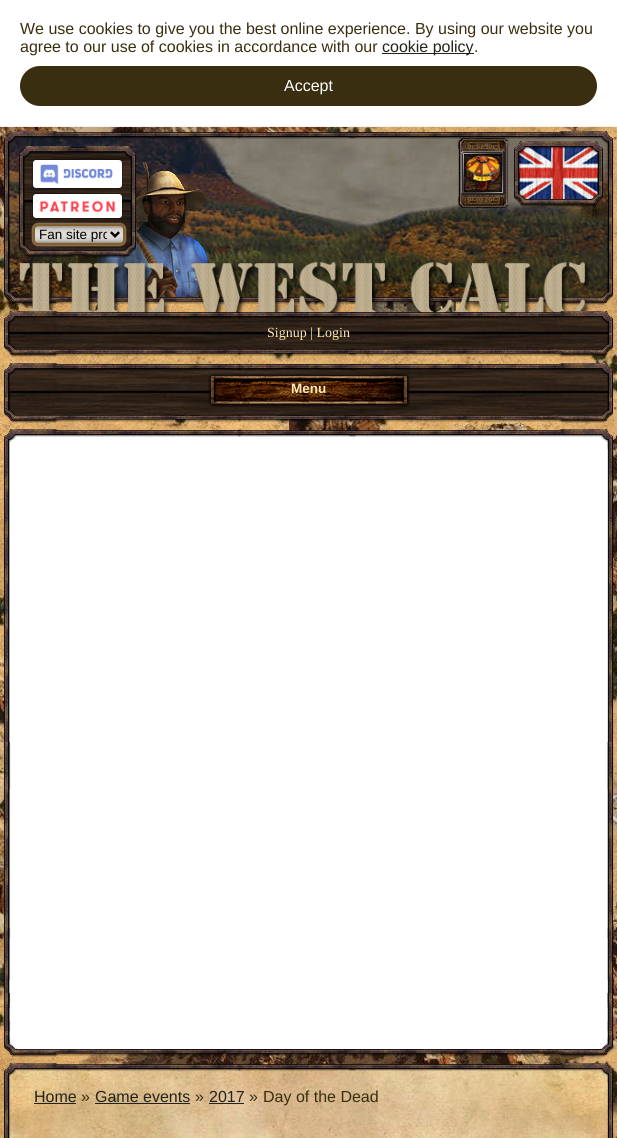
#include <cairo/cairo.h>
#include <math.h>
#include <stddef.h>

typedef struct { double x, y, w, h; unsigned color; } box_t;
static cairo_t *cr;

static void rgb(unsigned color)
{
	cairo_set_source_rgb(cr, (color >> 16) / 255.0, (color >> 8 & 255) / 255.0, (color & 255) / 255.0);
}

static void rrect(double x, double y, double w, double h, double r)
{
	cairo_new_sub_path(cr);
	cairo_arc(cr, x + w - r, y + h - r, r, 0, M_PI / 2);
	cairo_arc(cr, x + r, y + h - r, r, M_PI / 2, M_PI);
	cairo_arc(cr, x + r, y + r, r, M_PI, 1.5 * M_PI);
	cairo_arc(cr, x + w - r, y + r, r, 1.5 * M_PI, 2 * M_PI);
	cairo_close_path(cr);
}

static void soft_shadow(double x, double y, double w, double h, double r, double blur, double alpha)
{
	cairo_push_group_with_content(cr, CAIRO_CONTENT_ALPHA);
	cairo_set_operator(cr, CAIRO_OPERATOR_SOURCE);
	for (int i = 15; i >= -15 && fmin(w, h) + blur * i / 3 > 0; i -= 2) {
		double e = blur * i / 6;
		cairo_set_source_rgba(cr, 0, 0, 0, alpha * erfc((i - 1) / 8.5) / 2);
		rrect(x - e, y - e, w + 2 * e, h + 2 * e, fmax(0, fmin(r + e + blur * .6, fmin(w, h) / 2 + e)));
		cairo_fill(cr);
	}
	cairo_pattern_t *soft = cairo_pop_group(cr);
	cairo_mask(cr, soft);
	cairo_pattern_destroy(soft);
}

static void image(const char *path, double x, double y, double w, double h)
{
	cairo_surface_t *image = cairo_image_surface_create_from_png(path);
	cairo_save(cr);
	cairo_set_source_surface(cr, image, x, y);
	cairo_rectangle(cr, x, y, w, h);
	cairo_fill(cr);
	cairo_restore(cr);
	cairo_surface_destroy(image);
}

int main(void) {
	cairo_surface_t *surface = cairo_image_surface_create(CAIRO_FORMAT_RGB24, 617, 1138);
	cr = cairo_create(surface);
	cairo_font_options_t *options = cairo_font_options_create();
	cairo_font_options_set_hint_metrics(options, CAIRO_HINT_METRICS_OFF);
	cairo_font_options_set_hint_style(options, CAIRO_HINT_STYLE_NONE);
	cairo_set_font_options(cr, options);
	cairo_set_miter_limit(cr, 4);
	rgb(0xffffff);
	cairo_paint(cr);
	image("img/1.png", 0, 127, 617, 1011);
	rgb(0xf1f1f1);
	cairo_rectangle(cr, 0, 126, 617, 1);
	cairo_fill(cr);
	rgb(0x24221d);
	cairo_rectangle(cr, 382, 53, 92, 1);
	cairo_fill(cr);
	rgb(0x3a2e10);
	rrect(20, 66, 577, 40, 20);
	cairo_fill(cr);
	image("img/4.png", 9, 137, 600, 160);
	image("img/5.png", 78, 162, 131, 135);
	image("img/2.png", 4, 131, 305, 86);
	image("img/3.png", 309, 131, 305, 86);
	image("img/6.png", 4, 217, 305, 88);
	image("img/7.png", 309, 217, 305, 88);
	image("img/8.png", 457, 137, 53, 12);
	image("img/9.png", 458, 149, 50, 48);
	image("img/11.png", 464, 154, 38, 38);
	image("img/10.png", 461, 151, 44, 44);
	image("img/12.png", 457, 197, 53, 12);
	image("img/15.png", 519, 147, 80, 52);
	image("img/13.png", 514, 141, 45, 32);
	image("img/14.png", 559, 141, 45, 32);
	image("img/16.png", 514, 173, 45, 34);
	image("img/17.png", 559, 173, 45, 34);
	image("img/20.png", 24, 152, 108, 98);
	image("img/18.png", 19, 146, 59, 55);
	image("img/19.png", 78, 146, 59, 55);
	image("img/21.png", 19, 201, 59, 57);
	image("img/22.png", 78, 201, 59, 57);
	rgb(0x000000);
	soft_shadow(33, 160, 89, 28, 3, 0.5, 1);
	rgb(0xffffff);
	rrect(33, 160, 89, 28, 3);
	cairo_fill(cr);
	image("img/23.png", 40, 164, 73, 21);
	rgb(0x000000);
	soft_shadow(33, 194, 89, 24, 3, 0.5, 1);
	rgb(0xffffff);
	rrect(33, 194, 89, 24, 3);
	cairo_fill(cr);
	image("img/24.png", 39, 200, 77, 13);
	rgb(0x927b5c);
	soft_shadow(32, 223, 94, 23, 6, 0.5, 1);
	image("img/25.png", 33, 224, 92, 21);
	rrect(34, 225, 90, 19, 4);
	rgb(0x865e29);
	cairo_stroke(cr);
	cairo_new_path(cr);
	cairo_move_to(cr, 111, 232.5);
	cairo_line_to(cr, 115, 236.5);
	cairo_line_to(cr, 119, 232.5);
	rgb(0x000000);
	cairo_stroke(cr);
	image("img/26.png", 19, 262, 572, 51);
	image("img/29.png", 9, 317, 600, 32);
	image("img/27.png", 4, 311, 305, 22);
	image("img/28.png", 309, 311, 305, 22);
	image("img/30.png", 4, 333, 305, 24);
	image("img/31.png", 309, 333, 305, 24);
	image("img/34.png", 9, 369, 600, 46);
	image("img/32.png", 4, 363, 305, 29);
	image("img/33.png", 309, 363, 305, 29);
	image("img/37.png", 4, 392, 305, 31);
	image("img/35.png", 208, 373, 101, 34);
	image("img/38.png", 309, 392, 305, 31);
	image("img/36.png", 309, 373, 101, 34);
	rgb(0xffffff);
	cairo_rectangle(cr, 9, 435, 600, 614);
	cairo_fill(cr);
	image("img/39.png", 4, 429, 305, 313);
	image("img/40.png", 309, 429, 305, 313);
	image("img/41.png", 4, 742, 305, 315);
	image("img/42.png", 309, 742, 305, 315);
	image("img/45.png", 9, 1069, 600, 69);
	image("img/43.png", 4, 1063, 305, 75);
	image("img/44.png", 309, 1063, 305, 75);
	{
		static const box_t items[] = {
			{34, 1103, 42, 1, 0x24221d},
			{95, 1103, 95, 1, 0x24221d},
			{209, 1103, 35, 1, 0x24221d},
		};
		for (size_t i = 0; i < sizeof items / sizeof *items; i++) {
			rgb(items[i].color);
			cairo_rectangle(cr, items[i].x, items[i].y, items[i].w, items[i].h);
			cairo_fill(cr);
		}
	}
	cairo_select_font_face(cr, "Liberation Sans", CAIRO_FONT_SLANT_NORMAL, CAIRO_FONT_WEIGHT_NORMAL);
	cairo_set_font_size(cr, 16);
	rgb(0x3a2e10);
	cairo_move_to(cr, 20, 34);
	cairo_show_text(cr, "We use cookies to give you the best online experience. By using our website you");
	cairo_move_to(cr, 20, 52);
	cairo_show_text(cr, "agree to our use of cookies in accordance with our");
	rgb(0x24221d);
	cairo_move_to(cr, 382, 52);
	cairo_show_text(cr, "cookie policy");
	rgb(0x3a2e10);
	cairo_move_to(cr, 474, 52);
	cairo_show_text(cr, ".");
	rgb(0xffffff);
	cairo_move_to(cr, 284, 91);
	cairo_show_text(cr, "Accept");
	cairo_save(cr);
	cairo_rectangle(cr, 39, 226, 68, 17);
	cairo_clip(cr);
	cairo_set_font_size(cr, 13.5);
	rgb(0x000000);
	cairo_move_to(cr, 39, 239);
	cairo_show_text(cr, "Fan site pro");
	cairo_restore(cr);
	cairo_select_font_face(cr, "Liberation Serif", CAIRO_FONT_SLANT_NORMAL, CAIRO_FONT_WEIGHT_NORMAL);
	cairo_set_font_size(cr, 14);
	rgb(0xffe7b1);
	cairo_move_to(cr, 267, 337);
	cairo_show_text(cr, "Signup | Login");
	cairo_select_font_face(cr, "Liberation Sans", CAIRO_FONT_SLANT_NORMAL, CAIRO_FONT_WEIGHT_BOLD);
	cairo_set_font_size(cr, 13.5);
	cairo_move_to(cr, 291, 393);
	cairo_show_text(cr, "Menu");
	cairo_select_font_face(cr, "Liberation Sans", CAIRO_FONT_SLANT_NORMAL, CAIRO_FONT_WEIGHT_NORMAL);
	cairo_set_font_size(cr, 16);
	rgb(0x24221d);
	cairo_move_to(cr, 34, 1102);
	cairo_show_text(cr, "Home");
	rgb(0x3a2e10);
	cairo_move_to(cr, 81, 1102);
	cairo_show_text(cr, "»");
	rgb(0x24221d);
	cairo_move_to(cr, 95, 1102);
	cairo_show_text(cr, "Game events");
	rgb(0x3a2e10);
	cairo_move_to(cr, 195, 1102);
	cairo_show_text(cr, "»");
	rgb(0x24221d);
	cairo_move_to(cr, 209, 1102);
	cairo_show_text(cr, "2017");
	rgb(0x3a2e10);
	cairo_move_to(cr, 249, 1102);
	cairo_show_text(cr, "»");
	cairo_move_to(cr, 263, 1102);
	cairo_show_text(cr, "Day of the Dead");
	cairo_surface_write_to_png(surface, "page.png");
	cairo_font_options_destroy(options);
	cairo_destroy(cr);
	cairo_surface_destroy(surface);
	return 0;
}
